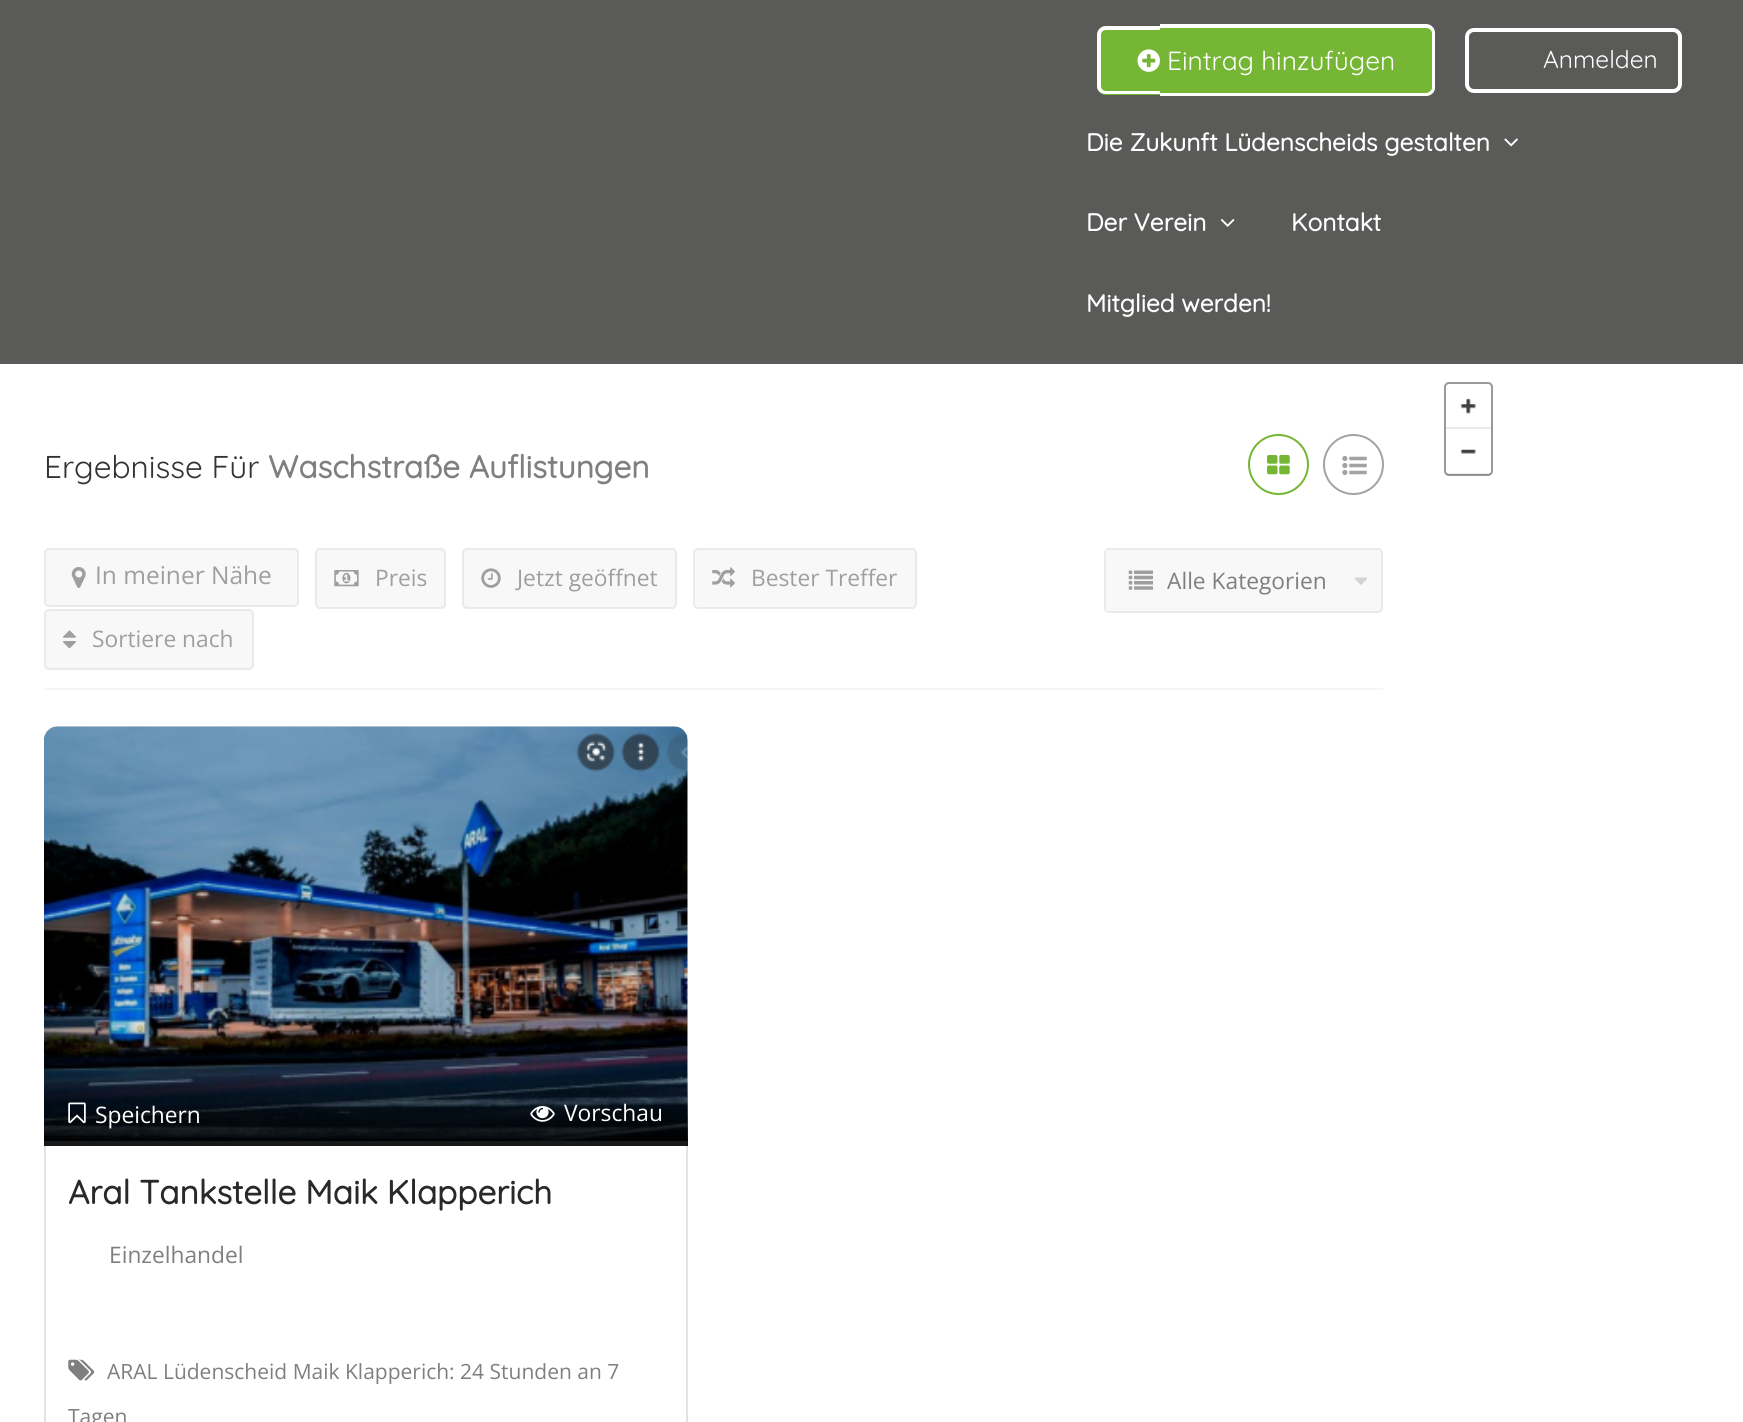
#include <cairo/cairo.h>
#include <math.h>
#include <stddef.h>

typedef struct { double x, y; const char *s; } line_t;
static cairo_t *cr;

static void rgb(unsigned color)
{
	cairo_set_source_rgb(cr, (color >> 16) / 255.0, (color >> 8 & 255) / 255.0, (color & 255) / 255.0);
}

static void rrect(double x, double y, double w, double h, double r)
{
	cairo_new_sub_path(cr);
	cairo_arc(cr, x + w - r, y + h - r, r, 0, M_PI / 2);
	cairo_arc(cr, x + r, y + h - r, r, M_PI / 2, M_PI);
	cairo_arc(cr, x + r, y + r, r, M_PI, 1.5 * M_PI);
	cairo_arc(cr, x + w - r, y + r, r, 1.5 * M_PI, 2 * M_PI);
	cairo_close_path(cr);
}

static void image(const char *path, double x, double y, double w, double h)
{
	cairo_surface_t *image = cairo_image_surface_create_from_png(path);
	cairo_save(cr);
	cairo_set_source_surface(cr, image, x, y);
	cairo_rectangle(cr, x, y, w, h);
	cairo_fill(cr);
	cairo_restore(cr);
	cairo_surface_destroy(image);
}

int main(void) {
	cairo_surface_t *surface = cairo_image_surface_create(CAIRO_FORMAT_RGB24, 1743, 1422);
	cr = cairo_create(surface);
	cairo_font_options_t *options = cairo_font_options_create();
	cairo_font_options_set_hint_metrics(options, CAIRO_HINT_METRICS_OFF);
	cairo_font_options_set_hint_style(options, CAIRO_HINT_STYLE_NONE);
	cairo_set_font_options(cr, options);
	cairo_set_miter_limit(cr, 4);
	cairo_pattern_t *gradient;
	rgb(0xffffff);
	cairo_paint(cr);
	rgb(0x5a5a59);
	cairo_rectangle(cr, 0, 0, 1743, 364);
	cairo_fill(cr);
	rgb(0x75b634);
	cairo_new_path(cr);
	cairo_move_to(cr, 1106, 26);
	cairo_line_to(cr, 1160, 26);
	cairo_line_to(cr, 1160, 95);
	cairo_line_to(cr, 1106, 95);
	cairo_curve_to(cr, 1101, 95, 1097, 91, 1097, 86);
	cairo_line_to(cr, 1097, 35);
	cairo_curve_to(cr, 1097, 30, 1101, 26, 1106, 26);
	cairo_close_path(cr);
	cairo_fill(cr);
	rgb(0xffffff);
	cairo_set_fill_rule(cr, CAIRO_FILL_RULE_EVEN_ODD);
	cairo_new_path(cr);
	cairo_move_to(cr, 1106, 26);
	cairo_line_to(cr, 1160, 26);
	cairo_line_to(cr, 1160, 94);
	cairo_line_to(cr, 1106, 94);
	cairo_curve_to(cr, 1101, 94, 1097, 91, 1097, 86);
	cairo_line_to(cr, 1097, 35);
	cairo_curve_to(cr, 1097, 30, 1101, 26, 1106, 26);
	cairo_close_path(cr);
	cairo_move_to(cr, 1106, 30);
	cairo_line_to(cr, 1160, 30);
	cairo_line_to(cr, 1160, 91);
	cairo_line_to(cr, 1106, 91);
	cairo_curve_to(cr, 1103, 91, 1101, 89, 1101, 86);
	cairo_line_to(cr, 1101, 35);
	cairo_curve_to(cr, 1101, 32, 1103, 30, 1106, 30);
	cairo_close_path(cr);
	cairo_fill(cr);
	rgb(0x75b634);
	cairo_new_path(cr);
	cairo_move_to(cr, 1160, 25);
	cairo_line_to(cr, 1426, 25);
	cairo_curve_to(cr, 1431, 25, 1435, 29, 1435, 34);
	cairo_line_to(cr, 1435, 87);
	cairo_curve_to(cr, 1435, 92, 1431, 96, 1426, 96);
	cairo_line_to(cr, 1160, 96);
	cairo_close_path(cr);
	cairo_fill(cr);
	rgb(0xffffff);
	cairo_new_path(cr);
	cairo_move_to(cr, 1160, 24);
	cairo_line_to(cr, 1426, 24);
	cairo_curve_to(cr, 1431, 24, 1435, 28, 1435, 33);
	cairo_line_to(cr, 1435, 88);
	cairo_curve_to(cr, 1435, 92, 1431, 96, 1426, 96);
	cairo_line_to(cr, 1160, 96);
	cairo_close_path(cr);
	cairo_move_to(cr, 1160, 28);
	cairo_line_to(cr, 1426, 28);
	cairo_curve_to(cr, 1429, 28, 1432, 30, 1432, 33);
	cairo_line_to(cr, 1432, 88);
	cairo_curve_to(cr, 1432, 90, 1429, 93, 1426, 93);
	cairo_line_to(cr, 1160, 93);
	cairo_close_path(cr);
	cairo_fill(cr);
	image("img/1.png", 1137, 49, 23, 23);
	rrect(1467, 30, 213, 61, 7);
	cairo_set_line_width(cr, 4);
	cairo_stroke(cr);
	image("img/2.png", 1504, 138, 14, 9);
	image("img/3.png", 1220, 219, 15, 8);
	rrect(1445, 383, 47, 92, 4);
	rgb(0x999999);
	cairo_set_line_width(cr, 2);
	cairo_stroke(cr);
	image("img/4.png", 1460, 398, 16, 16);
	rgb(0xececec);
	cairo_rectangle(cr, 1446, 427, 45, 2);
	cairo_fill(cr);
	image("img/5.png", 1460, 449, 16, 5);
	cairo_set_source_rgba(cr, 0, 0, 0, 0.08);
	cairo_rectangle(cr, 1446, 473, 45, 2);
	cairo_fill(cr);
	cairo_arc(cr, 1278.5, 464.5, 29.5, 0, 2 * M_PI);
	rgb(0x75b634);
	cairo_stroke(cr);
	image("img/6.png", 1267, 455, 23, 20);
	cairo_arc(cr, 1353.5, 464.5, 29.5, 0, 2 * M_PI);
	rgb(0xa3a3a3);
	cairo_stroke(cr);
	image("img/7.png", 1342, 455, 25, 21);
	rgb(0xf6f6f6);
	cairo_rectangle(cr, 44, 688, 1339, 2);
	cairo_fill(cr);
	rgb(0xf8f8f8);
	rrect(45, 549, 253, 57, 4);
	cairo_fill_preserve(cr);
	rgb(0xeaeaea);
	cairo_stroke(cr);
	image("img/8.png", 71, 567, 15, 21);
	rgb(0xf8f8f8);
	rrect(316, 549, 129, 59, 4);
	cairo_fill_preserve(cr);
	rgb(0xeaeaea);
	cairo_stroke(cr);
	image("img/9.png", 334, 570, 25, 17);
	rgb(0xf8f8f8);
	rrect(463, 549, 213, 59, 4);
	cairo_fill_preserve(cr);
	rgb(0xeaeaea);
	cairo_stroke(cr);
	image("img/10.png", 481, 568, 20, 20);
	rgb(0xf8f8f8);
	rrect(694, 549, 222, 59, 4);
	cairo_fill_preserve(cr);
	rgb(0xeaeaea);
	cairo_stroke(cr);
	image("img/11.png", 712, 567, 23, 21);
	rgb(0xf8f8f8);
	rrect(45, 610, 208, 59, 4);
	cairo_fill_preserve(cr);
	rgb(0xeaeaea);
	cairo_stroke(cr);
	image("img/12.png", 63, 630, 13, 19);
	rgb(0xf8f8f8);
	rrect(1105, 549, 277, 63, 4);
	cairo_fill_preserve(cr);
	rgb(0xeaeaea);
	cairo_stroke(cr);
	rgb(0xf8f8f8);
	cairo_rectangle(cr, 1106, 550, 2, 61);
	cairo_fill(cr);
	image("img/13.png", 1128, 570, 25, 20);
	image("img/14.png", 1354, 577, 13, 8);
	rrect(45, 727, 642, 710, 13);
	rgb(0xe3e3e3);
	cairo_stroke(cr);
	image("img/15.png", 44, 726, 644, 415);
	gradient = cairo_pattern_create_linear(366, 1146, 366, 1066);
	cairo_pattern_add_color_stop_rgba(gradient, 0.08, 0, 0, 0, 0.9);
	cairo_pattern_add_color_stop_rgba(gradient, 0.94, 0, 0, 0, 0);
	cairo_set_source(cr, gradient);
	cairo_pattern_destroy(gradient);
	cairo_rectangle(cr, 44, 1072, 644, 74);
	cairo_fill(cr);
	image("img/16.png", 68, 1102, 18, 22);
	image("img/17.png", 530, 1106, 25, 16);
	image("img/18.png", 68, 1359, 27, 22);
	cairo_select_font_face(cr, "Quicksand Light", CAIRO_FONT_SLANT_NORMAL, CAIRO_FONT_WEIGHT_NORMAL);
	cairo_set_font_size(cr, 26.25);
	rgb(0xffffff);
	cairo_move_to(cr, 1167, 70);
	cairo_show_text(cr, "Eintrag hinzufügen");
	cairo_set_font_size(cr, 24.5);
	cairo_move_to(cr, 1543, 68);
	cairo_show_text(cr, "Anmelden");
	cairo_select_font_face(cr, "Quicksand", CAIRO_FONT_SLANT_NORMAL, CAIRO_FONT_WEIGHT_BOLD);
	{
		static const line_t items[] = {
			{1086, 151, "Die Zukunft Lüdenscheids gestalten"},
			{1086, 231, "Der Verein"},
			{1291, 231, "Kontakt"},
			{1086, 312, "Mitglied werden!"},
		};
		for (size_t i = 0; i < sizeof items / sizeof *items; i++) {
			cairo_move_to(cr, items[i].x, items[i].y);
			cairo_show_text(cr, items[i].s);
		}
	}
	cairo_select_font_face(cr, "Quicksand Light", CAIRO_FONT_SLANT_NORMAL, CAIRO_FONT_WEIGHT_NORMAL);
	cairo_set_font_size(cr, 31.5);
	rgb(0x333333);
	cairo_move_to(cr, 44, 478);
	cairo_show_text(cr, "Ergebnisse Für");
	cairo_select_font_face(cr, "Quicksand", CAIRO_FONT_SLANT_NORMAL, CAIRO_FONT_WEIGHT_BOLD);
	rgb(0x7f7f7f);
	cairo_move_to(cr, 268, 478);
	cairo_show_text(cr, "Waschstraße Auflistungen");
	cairo_select_font_face(cr, "Open Sans", CAIRO_FONT_SLANT_NORMAL, CAIRO_FONT_WEIGHT_NORMAL);
	cairo_set_font_size(cr, 24.5);
	rgb(0x9f9f9f);
	cairo_move_to(cr, 95, 584);
	cairo_show_text(cr, "In meiner Nähe");
	cairo_set_font_size(cr, 22.75);
	{
		static const line_t items[] = {
			{375, 586, "Preis"},
			{517, 586, "Jetzt geöffnet"},
			{751, 586, "Bester Treffer"},
			{92, 647, "Sortiere nach"},
		};
		for (size_t i = 0; i < sizeof items / sizeof *items; i++) {
			cairo_move_to(cr, items[i].x, items[i].y);
			cairo_show_text(cr, items[i].s);
		}
	}
	rgb(0x7f7f7f);
	cairo_move_to(cr, 1167, 589);
	cairo_show_text(cr, "Alle Kategorien");
	rgb(0xffffff);
	cairo_move_to(cr, 95, 1123);
	cairo_show_text(cr, "Speichern");
	cairo_move_to(cr, 564, 1121);
	cairo_show_text(cr, "Vorschau");
	cairo_select_font_face(cr, "Quicksand", CAIRO_FONT_SLANT_NORMAL, CAIRO_FONT_WEIGHT_BOLD);
	cairo_set_font_size(cr, 33.25);
	rgb(0x292929);
	cairo_move_to(cr, 68, 1204);
	cairo_show_text(cr, "Aral Tankstelle Maik Klapperich");
	cairo_select_font_face(cr, "Open Sans", CAIRO_FONT_SLANT_NORMAL, CAIRO_FONT_WEIGHT_NORMAL);
	cairo_set_font_size(cr, 22.75);
	rgb(0x7f7f7f);
	cairo_move_to(cr, 109, 1263);
	cairo_show_text(cr, "Einzelhandel");
	cairo_set_font_size(cr, 21);
	cairo_move_to(cr, 107, 1379);
	cairo_show_text(cr, "ARAL Lüdenscheid Maik Klapperich: 24 Stunden an 7");
	cairo_move_to(cr, 68, 1424);
	cairo_show_text(cr, "Tagen");
	cairo_surface_write_to_png(surface, "page.png");
	cairo_font_options_destroy(options);
	cairo_destroy(cr);
	cairo_surface_destroy(surface);
	return 0;
}
